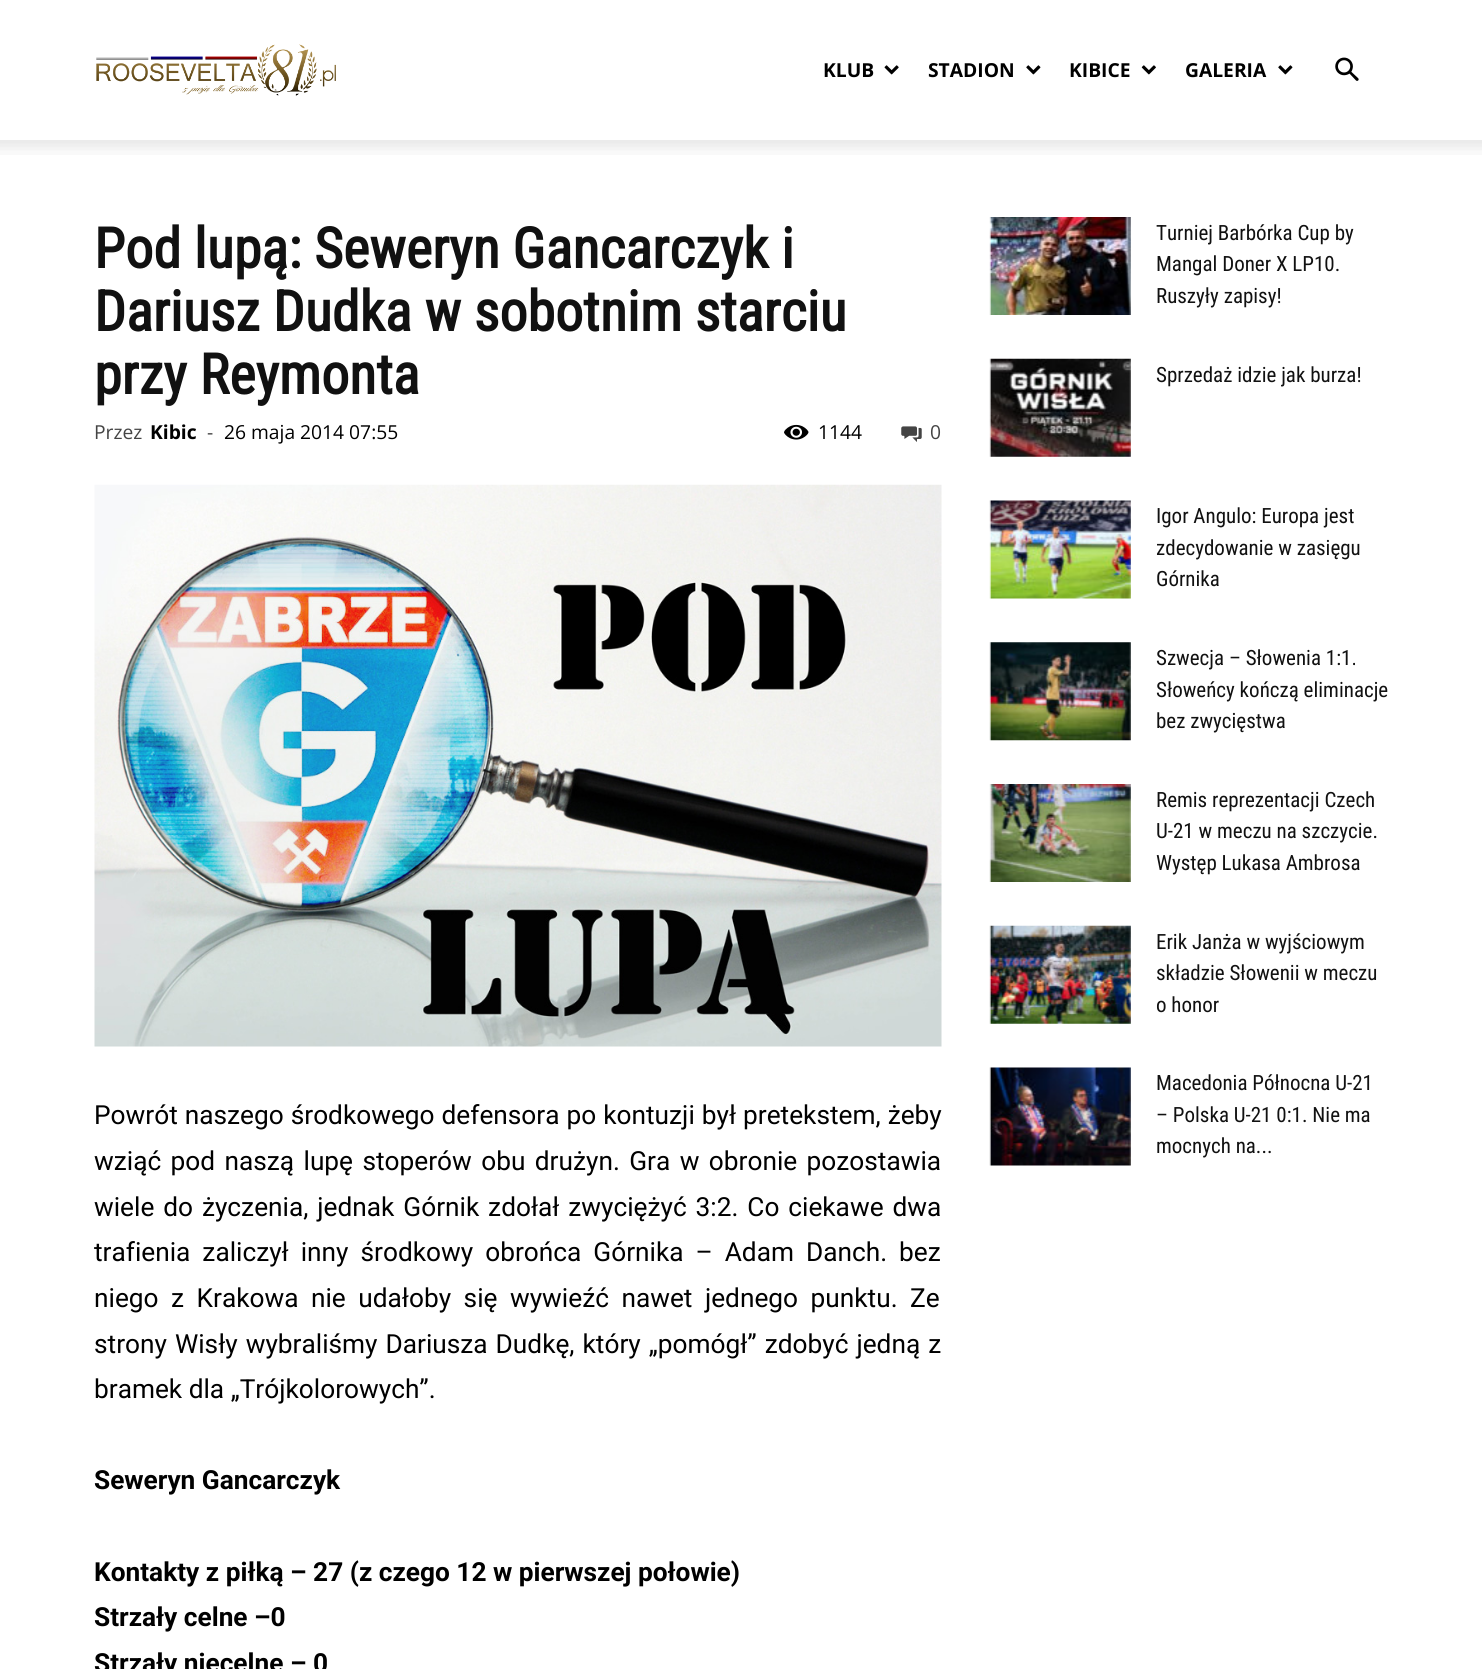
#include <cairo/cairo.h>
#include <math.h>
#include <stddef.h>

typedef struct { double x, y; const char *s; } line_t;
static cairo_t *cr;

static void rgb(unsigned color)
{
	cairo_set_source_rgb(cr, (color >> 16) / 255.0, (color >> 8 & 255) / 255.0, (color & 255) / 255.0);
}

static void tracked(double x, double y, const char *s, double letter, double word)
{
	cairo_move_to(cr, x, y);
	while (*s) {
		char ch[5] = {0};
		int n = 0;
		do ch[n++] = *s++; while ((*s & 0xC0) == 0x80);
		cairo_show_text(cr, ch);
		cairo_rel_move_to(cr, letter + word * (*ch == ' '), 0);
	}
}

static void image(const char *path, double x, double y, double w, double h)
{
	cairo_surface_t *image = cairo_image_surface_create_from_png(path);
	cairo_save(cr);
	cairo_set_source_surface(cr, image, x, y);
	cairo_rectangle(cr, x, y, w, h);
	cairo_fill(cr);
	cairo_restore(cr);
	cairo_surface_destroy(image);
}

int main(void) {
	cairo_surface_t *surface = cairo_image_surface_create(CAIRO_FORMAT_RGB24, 1482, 1669);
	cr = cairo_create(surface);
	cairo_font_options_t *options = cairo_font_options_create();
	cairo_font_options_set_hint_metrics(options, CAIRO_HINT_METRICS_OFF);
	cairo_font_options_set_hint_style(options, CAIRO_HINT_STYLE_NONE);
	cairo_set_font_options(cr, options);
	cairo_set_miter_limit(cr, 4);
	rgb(0xffffff);
	cairo_paint(cr);
	image("img/1.png", 96, 44, 240, 52);
	image("img/2.png", 884, 65, 15, 10);
	image("img/3.png", 1026, 65, 15, 10);
	image("img/4.png", 1141, 65, 15, 10);
	image("img/3.png", 1278, 65, 15, 10);
	image("img/5.png", 1335, 57, 24, 24);
	image("img/6.png", 0, 140, 1482, 15);
	image("img/7.png", 784, 424, 25, 16);
	image("img/8.png", 901, 426, 21, 16);
	image("img/9.png", 94, 484, 848, 563);
	image("img/10.png", 989, 217, 142, 98);
	image("img/11.png", 989, 358, 142, 99);
	image("img/12.png", 989, 500, 142, 99);
	image("img/13.png", 989, 642, 142, 99);
	image("img/14.png", 989, 784, 142, 98);
	image("img/15.png", 989, 925, 142, 99);
	image("img/16.png", 989, 1067, 142, 99);
	cairo_select_font_face(cr, "Open Sans", CAIRO_FONT_SLANT_NORMAL, CAIRO_FONT_WEIGHT_BOLD);
	cairo_set_font_size(cr, 19.25);
	rgb(0x000000);
	{
		static const line_t items[] = {
			{823, 77, "KLUB"},
			{928, 77, "STADION"},
			{1069, 77, "KIBICE"},
			{1185, 77, "GALERIA"},
		};
		for (size_t i = 0; i < sizeof items / sizeof *items; i++) {
			cairo_move_to(cr, items[i].x, items[i].y);
			cairo_show_text(cr, items[i].s);
		}
	}
	cairo_select_font_face(cr, "Roboto Condensed", CAIRO_FONT_SLANT_NORMAL, CAIRO_FONT_WEIGHT_BOLD);
	cairo_set_font_size(cr, 56);
	rgb(0x111111);
	{
		static const line_t items[] = {
			{94, 268, "Pod lupą: Seweryn Gancarczyk i"},
			{94, 331, "Dariusz Dudka w sobotnim starciu"},
			{94, 394, "przy Reymonta"},
		};
		for (size_t i = 0; i < sizeof items / sizeof *items; i++) {
			cairo_move_to(cr, items[i].x, items[i].y);
			cairo_show_text(cr, items[i].s);
		}
	}
	cairo_select_font_face(cr, "Open Sans", CAIRO_FONT_SLANT_NORMAL, CAIRO_FONT_WEIGHT_NORMAL);
	cairo_set_font_size(cr, 19.25);
	rgb(0x444444);
	cairo_move_to(cr, 94, 439);
	cairo_show_text(cr, "Przez");
	cairo_select_font_face(cr, "Open Sans", CAIRO_FONT_SLANT_NORMAL, CAIRO_FONT_WEIGHT_BOLD);
	rgb(0x000000);
	cairo_move_to(cr, 150, 439);
	cairo_show_text(cr, "Kibic");
	cairo_select_font_face(cr, "Open Sans", CAIRO_FONT_SLANT_NORMAL, CAIRO_FONT_WEIGHT_NORMAL);
	rgb(0x444444);
	cairo_move_to(cr, 207, 439);
	cairo_show_text(cr, "-");
	rgb(0x000000);
	cairo_move_to(cr, 224, 439);
	cairo_show_text(cr, "26 maja 2014 07:55");
	cairo_move_to(cr, 818, 439);
	cairo_show_text(cr, "1144");
	rgb(0x444444);
	cairo_move_to(cr, 930, 439);
	cairo_show_text(cr, "0");
	cairo_select_font_face(cr, "Roboto", CAIRO_FONT_SLANT_NORMAL, CAIRO_FONT_WEIGHT_NORMAL);
	cairo_set_font_size(cr, 26.25);
	rgb(0x000000);
	tracked(94, 1124, "Powrót naszego środkowego defensora po kontuzji był pretekstem, żeby", 0, 0.5);
	tracked(94, 1170, "wziąć pod naszą lupę stoperów obu drużyn. Gra w obronie pozostawia", 0, 2.9);
	tracked(94, 1216, "wiele do życzenia, jednak Górnik zdołał zwyciężyć 3:2. Co ciekawe dwa", 0, 2.4);
	tracked(94, 1261, "trafienia zaliczył inny środkowy obrońca Górnika – Adam Danch. bez", 0, 5.5);
	tracked(94, 1307, "niego z Krakowa nie udałoby się wywieźć nawet jednego punktu. Ze", 0, 6);
	tracked(94, 1353, "strony Wisły wybraliśmy Dariusza Dudkę, który „pomógł” zdobyć jedną z", 0, 1.5);
	cairo_move_to(cr, 94, 1398);
	cairo_show_text(cr, "bramek dla „Trójkolorowych”.");
	cairo_select_font_face(cr, "Roboto", CAIRO_FONT_SLANT_NORMAL, CAIRO_FONT_WEIGHT_BOLD);
	{
		static const line_t items[] = {
			{94, 1489, "Seweryn Gancarczyk"},
			{94, 1581, "Kontakty z piłką – 27 (z czego 12 w pierwszej połowie)"},
			{94, 1626, "Strzały celne –0"},
			{94, 1672, "Strzały niecelne – 0"},
		};
		for (size_t i = 0; i < sizeof items / sizeof *items; i++) {
			cairo_move_to(cr, items[i].x, items[i].y);
			cairo_show_text(cr, items[i].s);
		}
	}
	cairo_select_font_face(cr, "Roboto Condensed", CAIRO_FONT_SLANT_NORMAL, CAIRO_FONT_WEIGHT_NORMAL);
	cairo_set_font_size(cr, 21);
	rgb(0x111111);
	{
		static const line_t items[] = {
			{1156, 240, "Turniej Barbórka Cup by"},
			{1156, 271, "Mangal Doner X LP10."},
			{1156, 303, "Ruszyły zapisy!"},
			{1156, 382, "Sprzedaż idzie jak burza!"},
			{1156, 523, "Igor Angulo: Europa jest"},
			{1156, 555, "zdecydowanie w zasięgu"},
			{1156, 586, "Górnika"},
			{1156, 665, "Szwecja – Słowenia 1:1."},
			{1156, 697, "Słoweńcy kończą eliminacje"},
			{1156, 728, "bez zwycięstwa"},
			{1156, 807, "Remis reprezentacji Czech"},
			{1156, 838, "U-21 w meczu na szczycie."},
			{1156, 870, "Występ Lukasa Ambrosa"},
			{1156, 949, "Erik Janża w wyjściowym"},
			{1156, 980, "składzie Słowenii w meczu"},
			{1156, 1012, "o honor"},
			{1156, 1090, "Macedonia Północna U-21"},
			{1156, 1122, "– Polska U-21 0:1. Nie ma"},
			{1156, 1153, "mocnych na..."},
		};
		for (size_t i = 0; i < sizeof items / sizeof *items; i++) {
			cairo_move_to(cr, items[i].x, items[i].y);
			cairo_show_text(cr, items[i].s);
		}
	}
	cairo_surface_write_to_png(surface, "page.png");
	cairo_font_options_destroy(options);
	cairo_destroy(cr);
	cairo_surface_destroy(surface);
	return 0;
}
